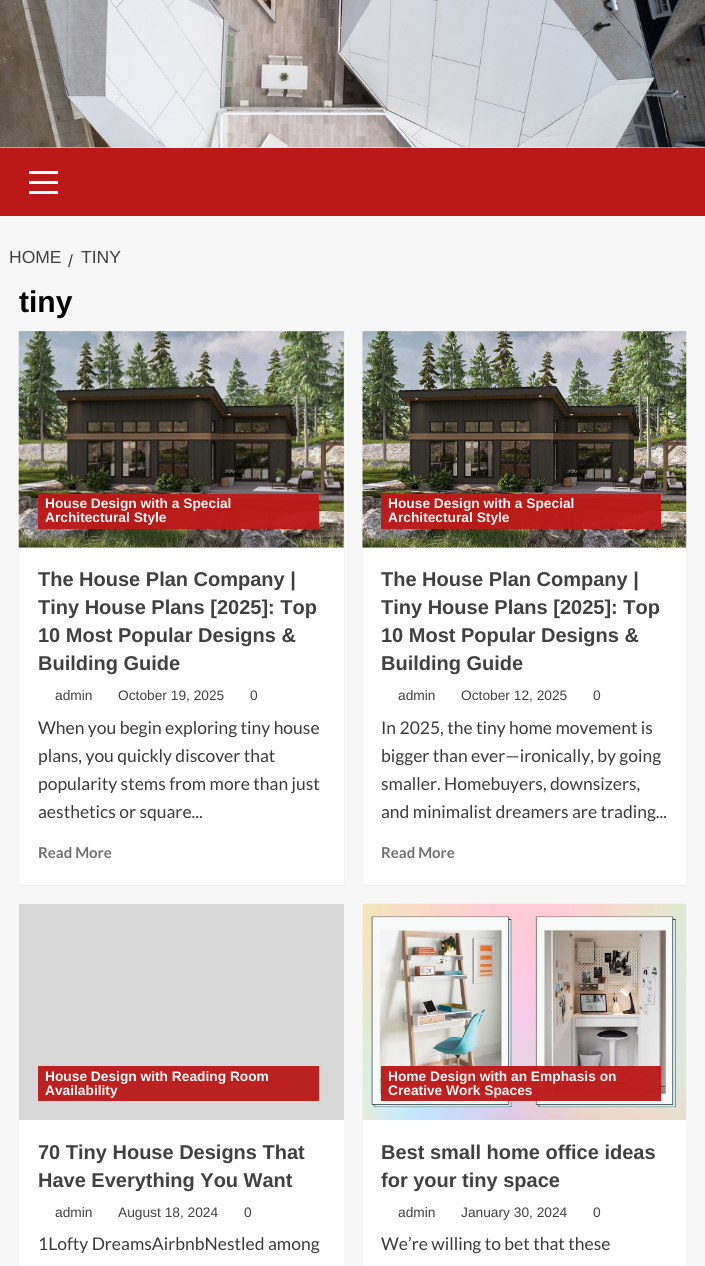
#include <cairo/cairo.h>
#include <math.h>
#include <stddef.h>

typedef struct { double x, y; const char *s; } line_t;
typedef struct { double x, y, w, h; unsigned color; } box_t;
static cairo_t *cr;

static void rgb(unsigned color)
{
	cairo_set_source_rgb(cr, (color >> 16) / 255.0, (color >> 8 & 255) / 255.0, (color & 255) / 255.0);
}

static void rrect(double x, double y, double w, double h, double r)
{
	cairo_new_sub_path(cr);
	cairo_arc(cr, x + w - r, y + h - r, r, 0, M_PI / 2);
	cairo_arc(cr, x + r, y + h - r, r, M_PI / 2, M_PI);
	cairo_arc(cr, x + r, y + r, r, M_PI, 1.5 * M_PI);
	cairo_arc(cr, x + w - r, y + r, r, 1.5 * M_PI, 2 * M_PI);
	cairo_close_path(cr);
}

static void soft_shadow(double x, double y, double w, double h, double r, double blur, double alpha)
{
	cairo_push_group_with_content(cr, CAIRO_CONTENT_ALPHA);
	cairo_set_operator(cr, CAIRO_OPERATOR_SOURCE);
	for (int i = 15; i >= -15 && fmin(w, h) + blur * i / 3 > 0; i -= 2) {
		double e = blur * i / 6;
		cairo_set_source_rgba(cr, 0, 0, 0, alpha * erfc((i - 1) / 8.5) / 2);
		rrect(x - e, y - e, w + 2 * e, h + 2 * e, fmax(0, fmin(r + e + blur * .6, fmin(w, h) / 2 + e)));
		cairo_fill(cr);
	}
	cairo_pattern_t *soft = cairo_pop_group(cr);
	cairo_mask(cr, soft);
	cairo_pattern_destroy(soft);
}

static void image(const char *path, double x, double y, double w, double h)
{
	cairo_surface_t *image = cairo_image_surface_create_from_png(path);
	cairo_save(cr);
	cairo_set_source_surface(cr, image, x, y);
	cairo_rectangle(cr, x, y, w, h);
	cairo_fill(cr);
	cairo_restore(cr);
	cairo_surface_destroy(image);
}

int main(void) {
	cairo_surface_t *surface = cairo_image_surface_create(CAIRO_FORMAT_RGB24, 705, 1266);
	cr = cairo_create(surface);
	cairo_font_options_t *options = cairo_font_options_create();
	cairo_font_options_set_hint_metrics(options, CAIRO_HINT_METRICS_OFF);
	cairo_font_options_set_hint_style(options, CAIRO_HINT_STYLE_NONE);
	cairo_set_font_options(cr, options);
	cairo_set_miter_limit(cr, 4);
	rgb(0xf7f7f7);
	cairo_paint(cr);
	image("img/1.png", 0, 0, 705, 148);
	{
		static const box_t items[] = {
			{0, 148, 705, 68, 0xbb1919},
			{29, 181, 29, 3, 0xffffff},
			{29, 171, 29, 3, 0xffffff},
			{29, 191, 29, 3, 0xffffff},
		};
		for (size_t i = 0; i < sizeof items / sizeof *items; i++) {
			rgb(items[i].color);
			cairo_rectangle(cr, items[i].x, items[i].y, items[i].w, items[i].h);
			cairo_fill(cr);
		}
	}
	rgb(0x000000);
	soft_shadow(19, 333, 325, 553, 0, 1, 0.05);
	rgb(0xffffff);
	cairo_rectangle(cr, 19, 548, 325, 337);
	cairo_fill(cr);
	rgb(0xd8d8d8);
	cairo_rectangle(cr, 19, 331, 325, 217);
	cairo_fill(cr);
	image("img/2.png", 18, 331, 326, 217);
	cairo_set_source_rgba(cr, 0.733, 0.098, 0.098, 0.96);
	cairo_rectangle(cr, 38, 494, 281, 35);
	cairo_fill(cr);
	rgb(0x000000);
	soft_shadow(363, 333, 323, 553, 0, 1, 0.05);
	rgb(0xffffff);
	cairo_rectangle(cr, 363, 548, 323, 337);
	cairo_fill(cr);
	rgb(0xd8d8d8);
	cairo_rectangle(cr, 363, 331, 323, 217);
	cairo_fill(cr);
	image("img/3.png", 362, 331, 325, 217);
	cairo_set_source_rgba(cr, 0.733, 0.098, 0.098, 0.96);
	cairo_rectangle(cr, 381, 494, 280, 35);
	cairo_fill(cr);
	rgb(0xffffff);
	cairo_rectangle(cr, 19, 1120, 325, 146);
	cairo_fill(cr);
	rgb(0xd8d8d8);
	cairo_rectangle(cr, 19, 904, 325, 216);
	cairo_fill(cr);
	rgb(0xbc2121);
	cairo_rectangle(cr, 38, 1066, 281, 35);
	cairo_fill(cr);
	rgb(0xffffff);
	cairo_rectangle(cr, 363, 1120, 323, 146);
	cairo_fill(cr);
	image("img/4.png", 362, 903, 325, 217);
	cairo_set_source_rgba(cr, 0.733, 0.098, 0.098, 0.96);
	cairo_rectangle(cr, 381, 1066, 280, 35);
	cairo_fill(cr);
	cairo_select_font_face(cr, "Liberation Sans", CAIRO_FONT_SLANT_NORMAL, CAIRO_FONT_WEIGHT_NORMAL);
	cairo_set_font_size(cr, 17.5);
	rgb(0x404040);
	{
		static const line_t items[] = {
			{9, 263, "HOME"},
			{68, 267, "/"},
			{81, 263, "TINY"},
		};
		for (size_t i = 0; i < sizeof items / sizeof *items; i++) {
			cairo_move_to(cr, items[i].x, items[i].y);
			cairo_show_text(cr, items[i].s);
		}
	}
	cairo_select_font_face(cr, "Liberation Sans", CAIRO_FONT_SLANT_NORMAL, CAIRO_FONT_WEIGHT_BOLD);
	cairo_set_font_size(cr, 30);
	rgb(0x000000);
	cairo_move_to(cr, 19, 312);
	cairo_show_text(cr, "tiny");
	cairo_set_font_size(cr, 13.75);
	rgb(0xfcf6f6);
	cairo_move_to(cr, 45, 508);
	cairo_show_text(cr, "House Design with a Special");
	cairo_move_to(cr, 45, 522);
	cairo_show_text(cr, "Architectural Style");
	cairo_set_font_size(cr, 20);
	rgb(0x404040);
	{
		static const line_t items[] = {
			{38, 586, "The House Plan Company |"},
			{38, 614, "Tiny House Plans [2025]: Top"},
			{38, 642, "10 Most Popular Designs &"},
			{38, 670, "Building Guide"},
		};
		for (size_t i = 0; i < sizeof items / sizeof *items; i++) {
			cairo_move_to(cr, items[i].x, items[i].y);
			cairo_show_text(cr, items[i].s);
		}
	}
	cairo_select_font_face(cr, "Liberation Sans", CAIRO_FONT_SLANT_NORMAL, CAIRO_FONT_WEIGHT_NORMAL);
	cairo_set_font_size(cr, 13.75);
	{
		static const line_t items[] = {
			{55, 700, "admin"},
			{118, 700, "October 19, 2025"},
			{250, 700, "0"},
		};
		for (size_t i = 0; i < sizeof items / sizeof *items; i++) {
			cairo_move_to(cr, items[i].x, items[i].y);
			cairo_show_text(cr, items[i].s);
		}
	}
	cairo_select_font_face(cr, "Lato", CAIRO_FONT_SLANT_NORMAL, CAIRO_FONT_WEIGHT_NORMAL);
	cairo_set_font_size(cr, 17.5);
	rgb(0x3a3a3a);
	{
		static const line_t items[] = {
			{38, 734, "When you begin exploring tiny house"},
			{38, 762, "plans, you quickly discover that"},
			{38, 790, "popularity stems from more than just"},
			{38, 818, "aesthetics or square..."},
		};
		for (size_t i = 0; i < sizeof items / sizeof *items; i++) {
			cairo_move_to(cr, items[i].x, items[i].y);
			cairo_show_text(cr, items[i].s);
		}
	}
	cairo_select_font_face(cr, "Lato", CAIRO_FONT_SLANT_NORMAL, CAIRO_FONT_WEIGHT_BOLD);
	cairo_set_font_size(cr, 15);
	rgb(0x707070);
	cairo_move_to(cr, 38, 858);
	cairo_show_text(cr, "Read More");
	cairo_select_font_face(cr, "Liberation Sans", CAIRO_FONT_SLANT_NORMAL, CAIRO_FONT_WEIGHT_BOLD);
	cairo_set_font_size(cr, 13.75);
	rgb(0xfcf6f6);
	cairo_move_to(cr, 388, 508);
	cairo_show_text(cr, "House Design with a Special");
	cairo_move_to(cr, 388, 522);
	cairo_show_text(cr, "Architectural Style");
	cairo_set_font_size(cr, 20);
	rgb(0x404040);
	{
		static const line_t items[] = {
			{381, 586, "The House Plan Company |"},
			{381, 614, "Tiny House Plans [2025]: Top"},
			{381, 642, "10 Most Popular Designs &"},
			{381, 670, "Building Guide"},
		};
		for (size_t i = 0; i < sizeof items / sizeof *items; i++) {
			cairo_move_to(cr, items[i].x, items[i].y);
			cairo_show_text(cr, items[i].s);
		}
	}
	cairo_select_font_face(cr, "Liberation Sans", CAIRO_FONT_SLANT_NORMAL, CAIRO_FONT_WEIGHT_NORMAL);
	cairo_set_font_size(cr, 13.75);
	{
		static const line_t items[] = {
			{398, 700, "admin"},
			{461, 700, "October 12, 2025"},
			{593, 700, "0"},
		};
		for (size_t i = 0; i < sizeof items / sizeof *items; i++) {
			cairo_move_to(cr, items[i].x, items[i].y);
			cairo_show_text(cr, items[i].s);
		}
	}
	cairo_select_font_face(cr, "Lato", CAIRO_FONT_SLANT_NORMAL, CAIRO_FONT_WEIGHT_NORMAL);
	cairo_set_font_size(cr, 17.5);
	rgb(0x3a3a3a);
	{
		static const line_t items[] = {
			{381, 734, "In 2025, the tiny home movement is"},
			{381, 762, "bigger than ever—ironically, by going"},
			{381, 790, "smaller. Homebuyers, downsizers,"},
			{381, 818, "and minimalist dreamers are trading..."},
		};
		for (size_t i = 0; i < sizeof items / sizeof *items; i++) {
			cairo_move_to(cr, items[i].x, items[i].y);
			cairo_show_text(cr, items[i].s);
		}
	}
	cairo_select_font_face(cr, "Lato", CAIRO_FONT_SLANT_NORMAL, CAIRO_FONT_WEIGHT_BOLD);
	cairo_set_font_size(cr, 15);
	rgb(0x707070);
	cairo_move_to(cr, 381, 858);
	cairo_show_text(cr, "Read More");
	cairo_select_font_face(cr, "Liberation Sans", CAIRO_FONT_SLANT_NORMAL, CAIRO_FONT_WEIGHT_BOLD);
	cairo_set_font_size(cr, 13.75);
	rgb(0xfdfdfd);
	cairo_move_to(cr, 45, 1081);
	cairo_show_text(cr, "House Design with Reading Room");
	cairo_move_to(cr, 45, 1095);
	cairo_show_text(cr, "Availability");
	cairo_set_font_size(cr, 20);
	rgb(0x404040);
	cairo_move_to(cr, 38, 1159);
	cairo_show_text(cr, "70 Tiny House Designs That");
	cairo_move_to(cr, 38, 1187);
	cairo_show_text(cr, "Have Everything You Want");
	cairo_select_font_face(cr, "Liberation Sans", CAIRO_FONT_SLANT_NORMAL, CAIRO_FONT_WEIGHT_NORMAL);
	cairo_set_font_size(cr, 13.75);
	{
		static const line_t items[] = {
			{55, 1217, "admin"},
			{118, 1217, "August 18, 2024"},
			{244, 1217, "0"},
		};
		for (size_t i = 0; i < sizeof items / sizeof *items; i++) {
			cairo_move_to(cr, items[i].x, items[i].y);
			cairo_show_text(cr, items[i].s);
		}
	}
	cairo_select_font_face(cr, "Lato", CAIRO_FONT_SLANT_NORMAL, CAIRO_FONT_WEIGHT_NORMAL);
	cairo_set_font_size(cr, 17.5);
	rgb(0x3a3a3a);
	cairo_move_to(cr, 38, 1250);
	cairo_show_text(cr, "1Lofty DreamsAirbnbNestled among");
	cairo_select_font_face(cr, "Liberation Sans", CAIRO_FONT_SLANT_NORMAL, CAIRO_FONT_WEIGHT_BOLD);
	cairo_set_font_size(cr, 13.75);
	rgb(0xfcf6f6);
	cairo_move_to(cr, 388, 1081);
	cairo_show_text(cr, "Home Design with an Emphasis on");
	cairo_move_to(cr, 388, 1095);
	cairo_show_text(cr, "Creative Work Spaces");
	cairo_set_font_size(cr, 20);
	rgb(0x404040);
	cairo_move_to(cr, 381, 1159);
	cairo_show_text(cr, "Best small home office ideas");
	cairo_move_to(cr, 381, 1187);
	cairo_show_text(cr, "for your tiny space");
	cairo_select_font_face(cr, "Liberation Sans", CAIRO_FONT_SLANT_NORMAL, CAIRO_FONT_WEIGHT_NORMAL);
	cairo_set_font_size(cr, 13.75);
	{
		static const line_t items[] = {
			{398, 1217, "admin"},
			{461, 1217, "January 30, 2024"},
			{593, 1217, "0"},
		};
		for (size_t i = 0; i < sizeof items / sizeof *items; i++) {
			cairo_move_to(cr, items[i].x, items[i].y);
			cairo_show_text(cr, items[i].s);
		}
	}
	cairo_select_font_face(cr, "Lato", CAIRO_FONT_SLANT_NORMAL, CAIRO_FONT_WEIGHT_NORMAL);
	cairo_set_font_size(cr, 17.5);
	rgb(0x3a3a3a);
	cairo_move_to(cr, 381, 1250);
	cairo_show_text(cr, "We’re willing to bet that these");
	cairo_surface_write_to_png(surface, "page.png");
	cairo_font_options_destroy(options);
	cairo_destroy(cr);
	cairo_surface_destroy(surface);
	return 0;
}
